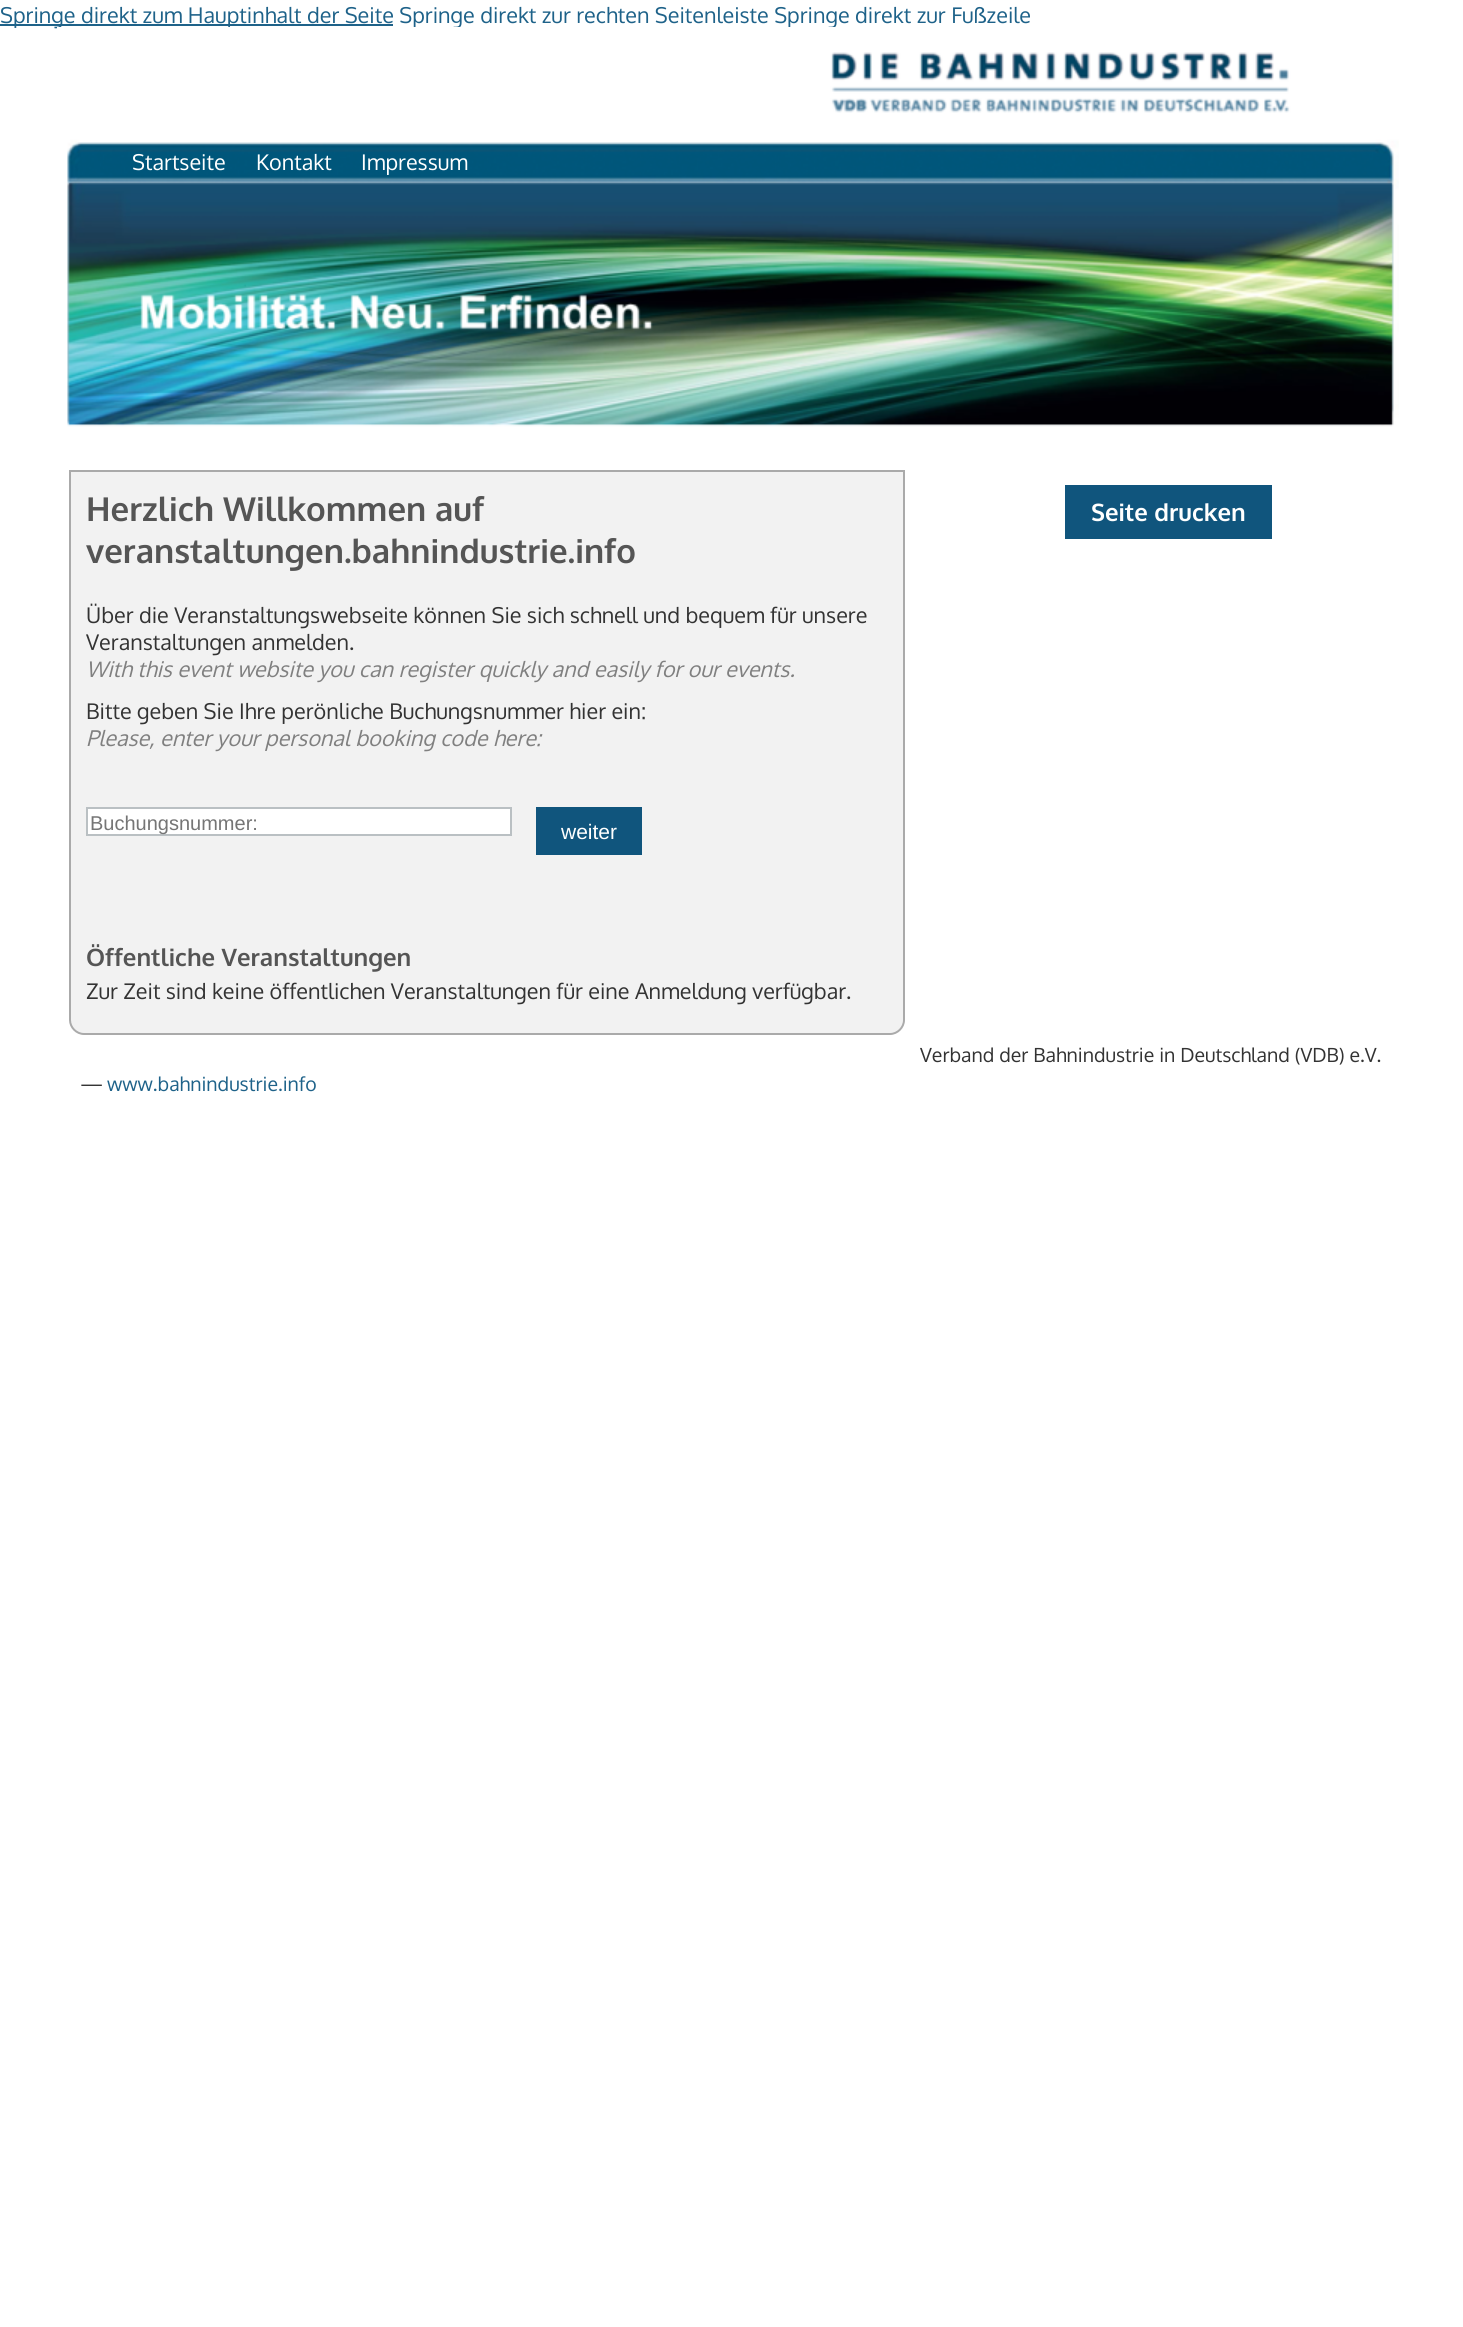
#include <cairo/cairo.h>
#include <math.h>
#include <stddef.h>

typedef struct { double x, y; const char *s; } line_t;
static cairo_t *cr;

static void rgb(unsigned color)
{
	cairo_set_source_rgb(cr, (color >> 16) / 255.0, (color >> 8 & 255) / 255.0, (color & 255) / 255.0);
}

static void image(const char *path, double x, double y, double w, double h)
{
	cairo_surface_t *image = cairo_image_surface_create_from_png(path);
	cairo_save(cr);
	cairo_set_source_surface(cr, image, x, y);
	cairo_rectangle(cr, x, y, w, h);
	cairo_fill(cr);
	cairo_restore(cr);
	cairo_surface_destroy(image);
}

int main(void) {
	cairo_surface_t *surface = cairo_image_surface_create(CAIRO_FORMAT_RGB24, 1463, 2327);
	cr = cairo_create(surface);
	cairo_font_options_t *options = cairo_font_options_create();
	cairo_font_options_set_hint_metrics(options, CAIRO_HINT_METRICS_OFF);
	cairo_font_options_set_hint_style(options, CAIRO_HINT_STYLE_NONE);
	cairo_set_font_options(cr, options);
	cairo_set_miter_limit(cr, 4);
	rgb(0xffffff);
	cairo_paint(cr);
	rgb(0x1e6289);
	cairo_rectangle(cr, 0, 24, 393, 2);
	cairo_fill(cr);
	image("img/1.png", 67, 52, 1332, 375);
	rgb(0xf2f2f2);
	cairo_new_path(cr);
	cairo_move_to(cr, 70, 471);
	cairo_line_to(cr, 904, 471);
	cairo_line_to(cr, 904, 1020);
	cairo_curve_to(cr, 904, 1027.5, 897.5, 1034, 890, 1034);
	cairo_line_to(cr, 84, 1034);
	cairo_curve_to(cr, 76.5, 1034, 70, 1027.5, 70, 1020);
	cairo_close_path(cr);
	cairo_fill_preserve(cr);
	rgb(0xaaaaaa);
	cairo_stroke(cr);
	rgb(0xffffff);
	cairo_rectangle(cr, 87, 808, 424, 27);
	cairo_fill_preserve(cr);
	rgb(0xbac0c3);
	cairo_stroke(cr);
	rgb(0x10557d);
	cairo_rectangle(cr, 536, 807, 106, 48);
	cairo_fill(cr);
	cairo_rectangle(cr, 1065, 485, 207, 54);
	cairo_fill(cr);
	cairo_select_font_face(cr, "Oxygen", CAIRO_FONT_SLANT_NORMAL, CAIRO_FONT_WEIGHT_NORMAL);
	cairo_set_font_size(cr, 21.6);
	rgb(0x1e6289);
	cairo_move_to(cr, 0, 23);
	cairo_show_text(cr, "Springe direkt zum Hauptinhalt der Seite Springe direkt zur rechten Seitenleiste Springe direkt zur Fußzeile");
	rgb(0xffffff);
	cairo_rectangle(cr, 57, 27, 778, 2);
	cairo_fill(cr);
	{
		static const line_t items[] = {
			{132, 170, "Startseite"},
			{256, 170, "Kontakt"},
			{361, 170, "Impressum"},
		};
		for (size_t i = 0; i < sizeof items / sizeof *items; i++) {
			cairo_move_to(cr, items[i].x, items[i].y);
			cairo_show_text(cr, items[i].s);
		}
	}
	cairo_select_font_face(cr, "Oxygen", CAIRO_FONT_SLANT_NORMAL, CAIRO_FONT_WEIGHT_BOLD);
	cairo_set_font_size(cr, 33);
	rgb(0x555555);
	cairo_move_to(cr, 86, 521);
	cairo_show_text(cr, "Herzlich Willkommen auf");
	cairo_move_to(cr, 86, 563);
	cairo_show_text(cr, "veranstaltungen.bahnindustrie.info");
	cairo_select_font_face(cr, "Oxygen", CAIRO_FONT_SLANT_NORMAL, CAIRO_FONT_WEIGHT_NORMAL);
	cairo_set_font_size(cr, 21.6);
	rgb(0x333333);
	cairo_move_to(cr, 86, 623);
	cairo_show_text(cr, "Über die Veranstaltungswebseite können Sie sich schnell und bequem für unsere");
	cairo_move_to(cr, 86, 650);
	cairo_show_text(cr, "Veranstaltungen anmelden.");
	cairo_select_font_face(cr, "Oxygen", CAIRO_FONT_SLANT_ITALIC, CAIRO_FONT_WEIGHT_NORMAL);
	rgb(0x808080);
	cairo_move_to(cr, 86, 677);
	cairo_show_text(cr, "With this event website you can register quickly and easily for our events.");
	cairo_select_font_face(cr, "Oxygen", CAIRO_FONT_SLANT_NORMAL, CAIRO_FONT_WEIGHT_NORMAL);
	rgb(0x333333);
	cairo_move_to(cr, 86, 719);
	cairo_show_text(cr, "Bitte geben Sie Ihre perönliche Buchungsnummer hier ein:");
	cairo_select_font_face(cr, "Oxygen", CAIRO_FONT_SLANT_ITALIC, CAIRO_FONT_WEIGHT_NORMAL);
	rgb(0x808080);
	cairo_move_to(cr, 86, 746);
	cairo_show_text(cr, "Please, enter your personal booking code here:");
	cairo_select_font_face(cr, "Liberation Sans", CAIRO_FONT_SLANT_NORMAL, CAIRO_FONT_WEIGHT_NORMAL);
	cairo_set_font_size(cr, 20);
	rgb(0x757575);
	cairo_move_to(cr, 90, 830);
	cairo_show_text(cr, "Buchungsnummer:");
	cairo_set_font_size(cr, 21);
	rgb(0xffffff);
	cairo_move_to(cr, 561, 839);
	cairo_show_text(cr, "weiter");
	cairo_select_font_face(cr, "Oxygen", CAIRO_FONT_SLANT_NORMAL, CAIRO_FONT_WEIGHT_BOLD);
	cairo_set_font_size(cr, 24);
	rgb(0x555555);
	cairo_move_to(cr, 86, 966);
	cairo_show_text(cr, "Öffentliche Veranstaltungen");
	cairo_select_font_face(cr, "Oxygen", CAIRO_FONT_SLANT_NORMAL, CAIRO_FONT_WEIGHT_NORMAL);
	cairo_set_font_size(cr, 21.6);
	rgb(0x333333);
	cairo_move_to(cr, 86, 999);
	cairo_show_text(cr, "Zur Zeit sind keine öffentlichen Veranstaltungen für eine Anmeldung verfügbar.");
	cairo_select_font_face(cr, "Oxygen", CAIRO_FONT_SLANT_NORMAL, CAIRO_FONT_WEIGHT_BOLD);
	cairo_set_font_size(cr, 24);
	rgb(0xffffff);
	cairo_move_to(cr, 1091, 521);
	cairo_show_text(cr, "Seite drucken");
	cairo_select_font_face(cr, "Oxygen", CAIRO_FONT_SLANT_NORMAL, CAIRO_FONT_WEIGHT_NORMAL);
	cairo_set_font_size(cr, 19.5);
	rgb(0x333333);
	cairo_move_to(cr, 920, 1062);
	cairo_show_text(cr, "Verband der Bahnindustrie in Deutschland (VDB) e.V.");
	cairo_move_to(cr, 80, 1091);
	cairo_show_text(cr, "—");
	rgb(0x1e6289);
	cairo_move_to(cr, 107, 1091);
	cairo_show_text(cr, "www.bahnindustrie.info");
	cairo_surface_write_to_png(surface, "page.png");
	cairo_font_options_destroy(options);
	cairo_destroy(cr);
	cairo_surface_destroy(surface);
	return 0;
}
